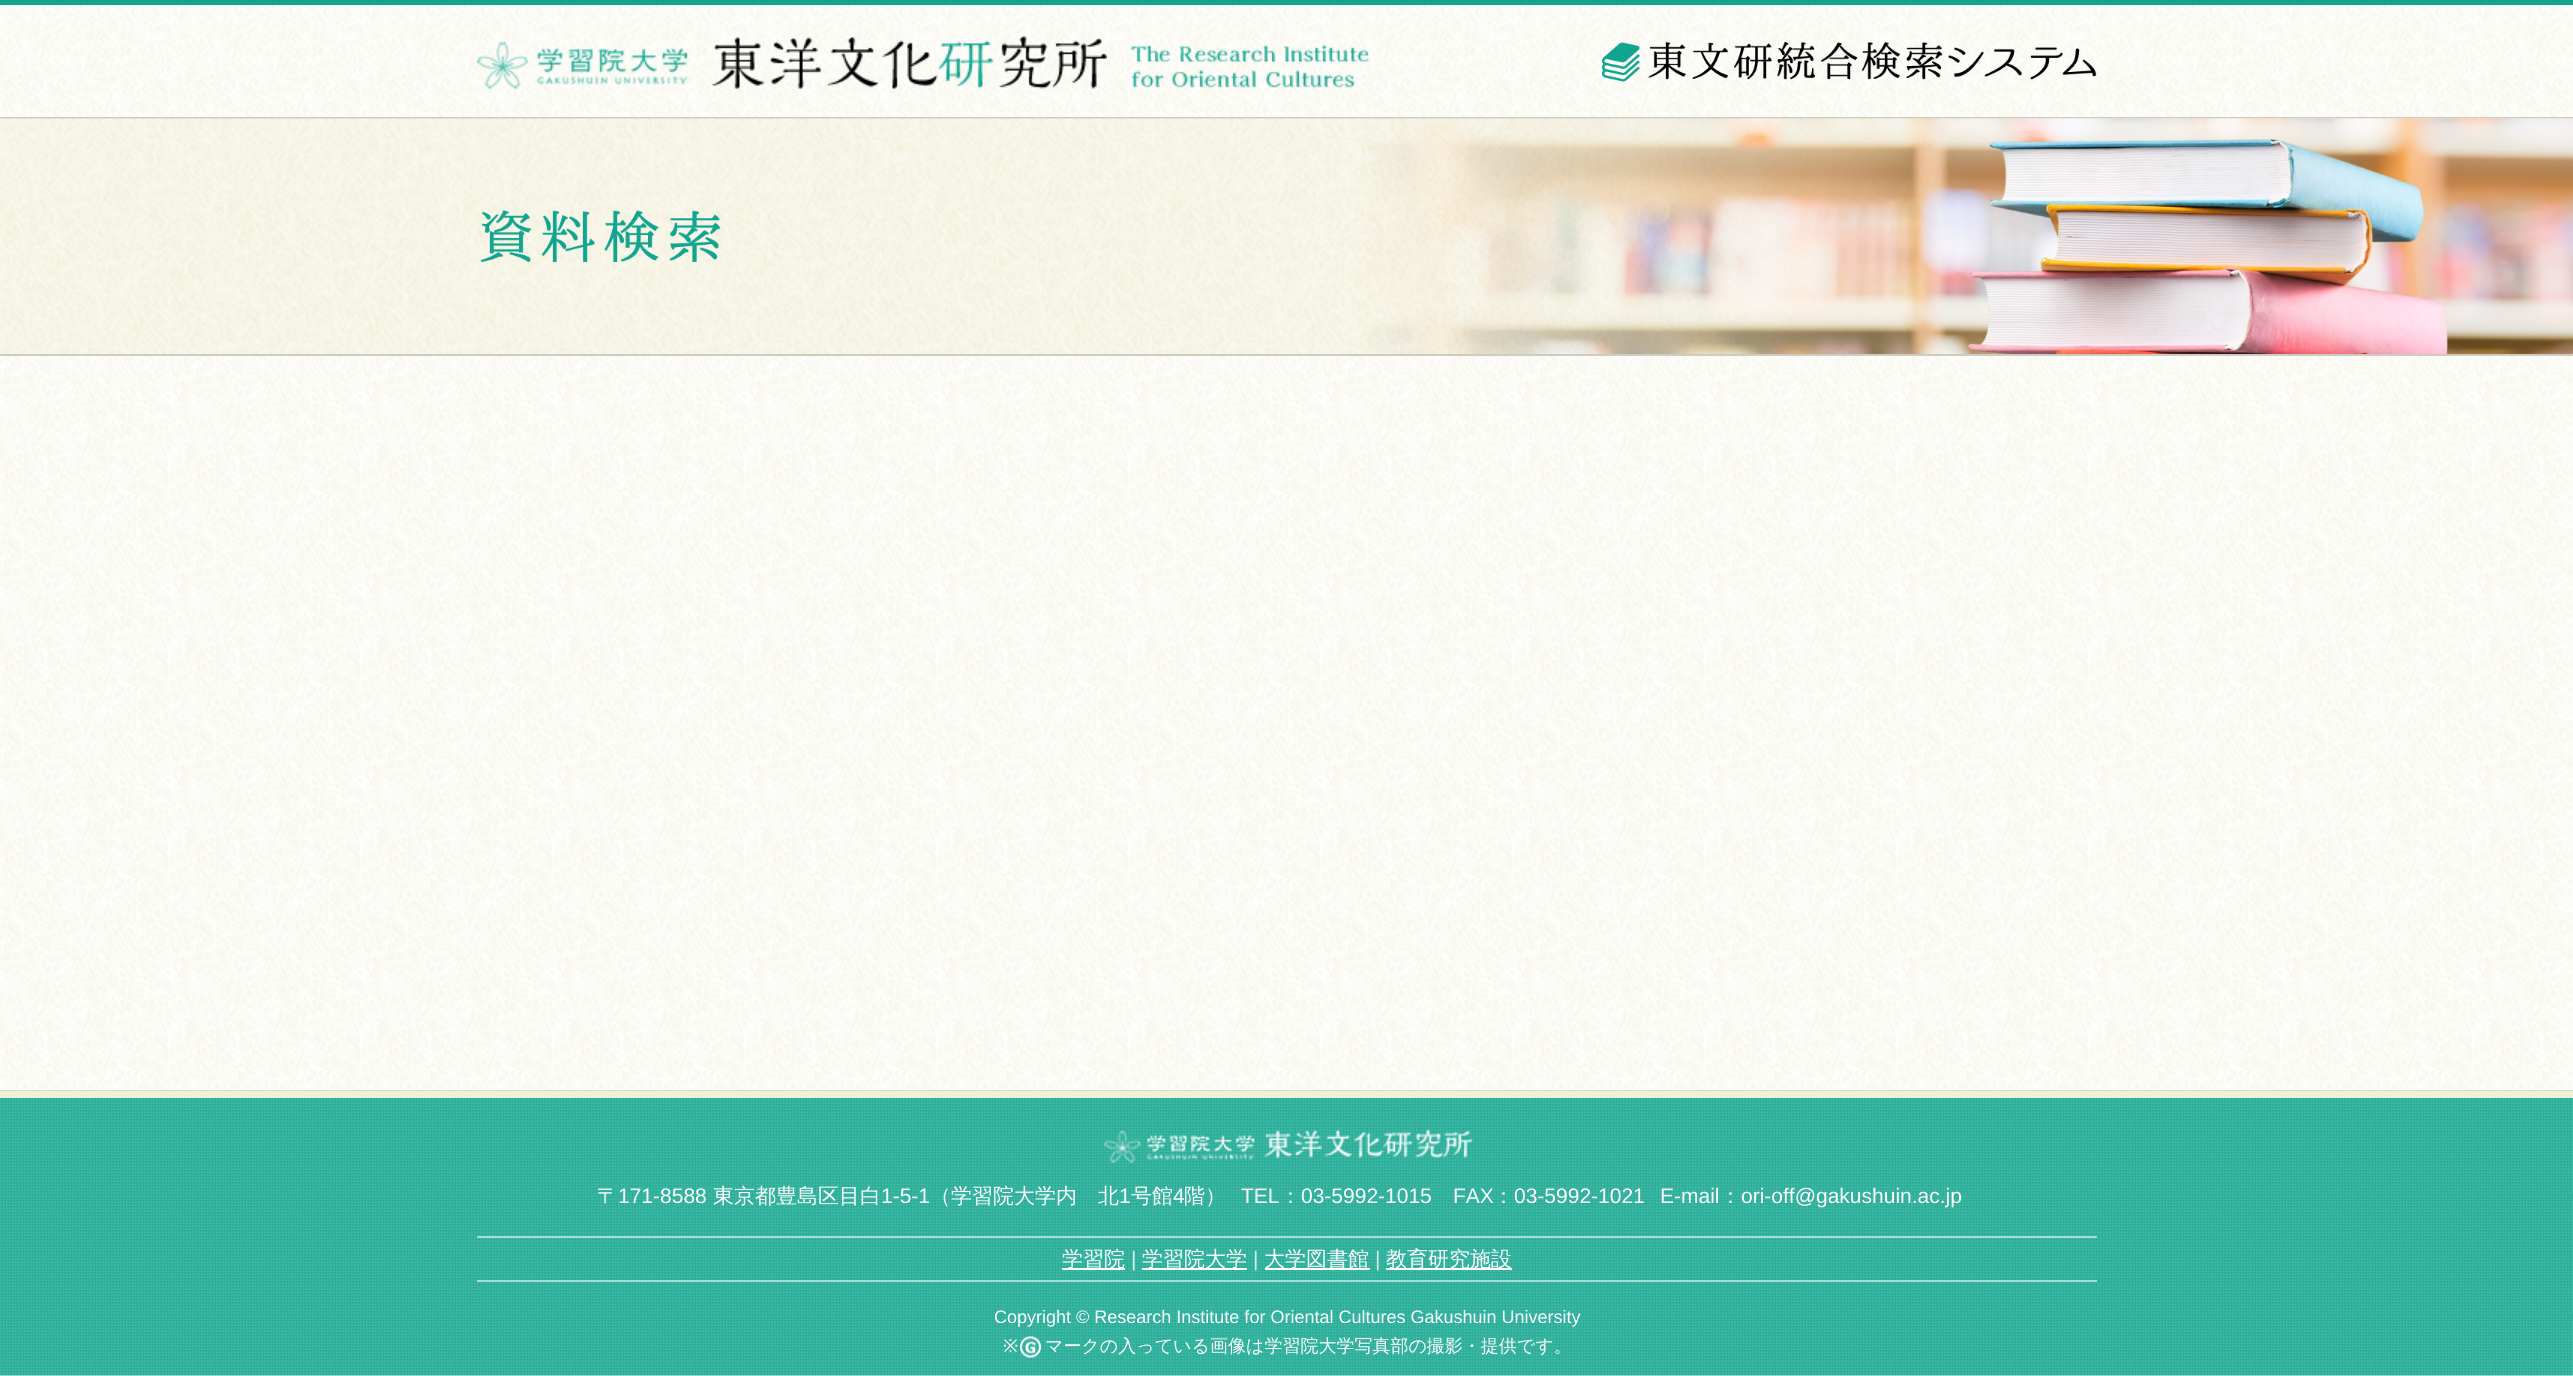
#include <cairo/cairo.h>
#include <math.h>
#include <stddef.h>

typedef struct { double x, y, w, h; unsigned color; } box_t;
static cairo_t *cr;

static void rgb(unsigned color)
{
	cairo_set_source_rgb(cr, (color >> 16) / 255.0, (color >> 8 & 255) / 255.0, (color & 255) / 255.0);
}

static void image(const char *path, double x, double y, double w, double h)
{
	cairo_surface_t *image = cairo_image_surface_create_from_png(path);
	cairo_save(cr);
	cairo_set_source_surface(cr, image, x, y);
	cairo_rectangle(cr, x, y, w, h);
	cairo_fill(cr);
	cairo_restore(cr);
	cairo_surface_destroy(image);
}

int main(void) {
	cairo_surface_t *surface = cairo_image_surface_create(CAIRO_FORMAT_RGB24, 2573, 1376);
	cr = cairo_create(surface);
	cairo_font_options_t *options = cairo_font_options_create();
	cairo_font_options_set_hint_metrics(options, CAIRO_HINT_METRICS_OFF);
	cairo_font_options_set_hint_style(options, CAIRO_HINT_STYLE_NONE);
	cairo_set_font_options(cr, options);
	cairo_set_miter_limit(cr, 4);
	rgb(0xffffff);
	cairo_paint(cr);
	image("img/1.png", 0, 356, 2573, 1020);
	image("img/2.png", 0, 5, 2573, 112);
	rgb(0x11a590);
	cairo_rectangle(cr, 0, 0, 2573, 5);
	cairo_fill(cr);
	rgb(0xccccc3);
	cairo_rectangle(cr, 0, 117, 2573, 2);
	cairo_fill(cr);
	image("img/3.png", 477, 35, 630, 54);
	image("img/4.png", 1130, 44, 240, 44);
	image("img/5.png", 1602, 42, 495, 40);
	image("img/6.png", 0, 118, 2573, 236);
	cairo_rectangle(cr, 0, 354, 2573, 2);
	cairo_fill(cr);
	image("img/7.png", 480, 210, 240, 53);
	image("img/8.png", 0, 1090, 2573, 286);
	image("img/9.png", 1103, 1129, 370, 34);
	{
		static const box_t items[] = {
			{477, 1236, 1620, 2, 0xa6ddd5},
			{477, 1280, 1620, 2, 0xa6ddd5},
			{1062, 1268, 63, 2, 0xffffff},
			{1142, 1268, 105, 2, 0xffffff},
			{1265, 1268, 105, 2, 0xffffff},
			{1386, 1268, 126, 2, 0xffffff},
		};
		for (size_t i = 0; i < sizeof items / sizeof *items; i++) {
			rgb(items[i].color);
			cairo_rectangle(cr, items[i].x, items[i].y, items[i].w, items[i].h);
			cairo_fill(cr);
		}
	}
	image("img/10.png", 1020, 1336, 21, 22);
	cairo_select_font_face(cr, "WenQuanYi Zen Hei Medium", CAIRO_FONT_SLANT_NORMAL, CAIRO_FONT_WEIGHT_NORMAL);
	cairo_set_font_size(cr, 21);
	cairo_move_to(cr, 597, 1203);
	cairo_show_text(cr, "〒");
	cairo_select_font_face(cr, "Liberation Sans", CAIRO_FONT_SLANT_NORMAL, CAIRO_FONT_WEIGHT_NORMAL);
	cairo_move_to(cr, 618, 1203);
	cairo_show_text(cr, "171-8588");
	cairo_select_font_face(cr, "WenQuanYi Zen Hei Medium", CAIRO_FONT_SLANT_NORMAL, CAIRO_FONT_WEIGHT_NORMAL);
	cairo_move_to(cr, 713, 1203);
	cairo_show_text(cr, "東京都豊島区目白");
	cairo_select_font_face(cr, "Liberation Sans", CAIRO_FONT_SLANT_NORMAL, CAIRO_FONT_WEIGHT_NORMAL);
	cairo_move_to(cr, 881, 1203);
	cairo_show_text(cr, "1-5-1");
	cairo_select_font_face(cr, "WenQuanYi Zen Hei Medium", CAIRO_FONT_SLANT_NORMAL, CAIRO_FONT_WEIGHT_NORMAL);
	cairo_move_to(cr, 930, 1203);
	cairo_show_text(cr, "（学習院大学内　北");
	cairo_select_font_face(cr, "Liberation Sans", CAIRO_FONT_SLANT_NORMAL, CAIRO_FONT_WEIGHT_NORMAL);
	cairo_move_to(cr, 1119, 1203);
	cairo_show_text(cr, "1");
	cairo_select_font_face(cr, "WenQuanYi Zen Hei Medium", CAIRO_FONT_SLANT_NORMAL, CAIRO_FONT_WEIGHT_NORMAL);
	cairo_move_to(cr, 1131, 1203);
	cairo_show_text(cr, "号館");
	cairo_select_font_face(cr, "Liberation Sans", CAIRO_FONT_SLANT_NORMAL, CAIRO_FONT_WEIGHT_NORMAL);
	cairo_move_to(cr, 1173, 1203);
	cairo_show_text(cr, "4");
	cairo_select_font_face(cr, "WenQuanYi Zen Hei Medium", CAIRO_FONT_SLANT_NORMAL, CAIRO_FONT_WEIGHT_NORMAL);
	cairo_move_to(cr, 1184, 1203);
	cairo_show_text(cr, "階）");
	cairo_select_font_face(cr, "Liberation Sans", CAIRO_FONT_SLANT_NORMAL, CAIRO_FONT_WEIGHT_NORMAL);
	cairo_move_to(cr, 1241, 1203);
	cairo_show_text(cr, "TEL");
	cairo_select_font_face(cr, "WenQuanYi Zen Hei Medium", CAIRO_FONT_SLANT_NORMAL, CAIRO_FONT_WEIGHT_NORMAL);
	cairo_move_to(cr, 1280, 1203);
	cairo_show_text(cr, "：");
	cairo_select_font_face(cr, "Liberation Sans", CAIRO_FONT_SLANT_NORMAL, CAIRO_FONT_WEIGHT_NORMAL);
	cairo_move_to(cr, 1301, 1203);
	cairo_show_text(cr, "03-5992-1015");
	cairo_move_to(cr, 1453, 1203);
	cairo_show_text(cr, "FAX");
	cairo_select_font_face(cr, "WenQuanYi Zen Hei Medium", CAIRO_FONT_SLANT_NORMAL, CAIRO_FONT_WEIGHT_NORMAL);
	cairo_move_to(cr, 1493, 1203);
	cairo_show_text(cr, "：");
	cairo_select_font_face(cr, "Liberation Sans", CAIRO_FONT_SLANT_NORMAL, CAIRO_FONT_WEIGHT_NORMAL);
	cairo_move_to(cr, 1514, 1203);
	cairo_show_text(cr, "03-5992-1021");
	cairo_move_to(cr, 1660, 1203);
	cairo_show_text(cr, "E-mail");
	cairo_select_font_face(cr, "WenQuanYi Zen Hei Medium", CAIRO_FONT_SLANT_NORMAL, CAIRO_FONT_WEIGHT_NORMAL);
	cairo_move_to(cr, 1720, 1203);
	cairo_show_text(cr, "：");
	cairo_select_font_face(cr, "Liberation Sans", CAIRO_FONT_SLANT_NORMAL, CAIRO_FONT_WEIGHT_NORMAL);
	cairo_move_to(cr, 1741, 1203);
	cairo_show_text(cr, "ori-off@gakushuin.ac.jp");
	cairo_select_font_face(cr, "WenQuanYi Zen Hei Medium", CAIRO_FONT_SLANT_NORMAL, CAIRO_FONT_WEIGHT_NORMAL);
	cairo_move_to(cr, 1062, 1266);
	cairo_show_text(cr, "学習院");
	cairo_select_font_face(cr, "Liberation Sans", CAIRO_FONT_SLANT_NORMAL, CAIRO_FONT_WEIGHT_NORMAL);
	rgb(0xd6f0ec);
	cairo_move_to(cr, 1131, 1266);
	cairo_show_text(cr, "|");
	cairo_select_font_face(cr, "WenQuanYi Zen Hei Medium", CAIRO_FONT_SLANT_NORMAL, CAIRO_FONT_WEIGHT_NORMAL);
	rgb(0xffffff);
	cairo_move_to(cr, 1142, 1266);
	cairo_show_text(cr, "学習院大学");
	cairo_select_font_face(cr, "Liberation Sans", CAIRO_FONT_SLANT_NORMAL, CAIRO_FONT_WEIGHT_NORMAL);
	rgb(0xd6f0ec);
	cairo_move_to(cr, 1253, 1266);
	cairo_show_text(cr, "|");
	cairo_select_font_face(cr, "WenQuanYi Zen Hei Medium", CAIRO_FONT_SLANT_NORMAL, CAIRO_FONT_WEIGHT_NORMAL);
	rgb(0xffffff);
	cairo_move_to(cr, 1264, 1266);
	cairo_show_text(cr, "大学図書館");
	cairo_select_font_face(cr, "Liberation Sans", CAIRO_FONT_SLANT_NORMAL, CAIRO_FONT_WEIGHT_NORMAL);
	rgb(0xd6f0ec);
	cairo_move_to(cr, 1375, 1266);
	cairo_show_text(cr, "|");
	cairo_select_font_face(cr, "WenQuanYi Zen Hei Medium", CAIRO_FONT_SLANT_NORMAL, CAIRO_FONT_WEIGHT_NORMAL);
	rgb(0xffffff);
	cairo_move_to(cr, 1386, 1266);
	cairo_show_text(cr, "教育研究施設");
	cairo_select_font_face(cr, "Liberation Sans", CAIRO_FONT_SLANT_NORMAL, CAIRO_FONT_WEIGHT_NORMAL);
	cairo_set_font_size(cr, 18);
	cairo_move_to(cr, 994, 1323);
	cairo_show_text(cr, "Copyright © Research Institute for Oriental Cultures Gakushuin University");
	cairo_select_font_face(cr, "Noto Sans", CAIRO_FONT_SLANT_NORMAL, CAIRO_FONT_WEIGHT_NORMAL);
	cairo_move_to(cr, 1003, 1352);
	cairo_show_text(cr, "※");
	cairo_select_font_face(cr, "WenQuanYi Zen Hei Medium", CAIRO_FONT_SLANT_NORMAL, CAIRO_FONT_WEIGHT_NORMAL);
	cairo_move_to(cr, 1045, 1352);
	cairo_show_text(cr, "マークの入っている画像は学習院大学写真部の撮影・提供です。");
	cairo_surface_write_to_png(surface, "page.png");
	cairo_font_options_destroy(options);
	cairo_destroy(cr);
	cairo_surface_destroy(surface);
	return 0;
}
